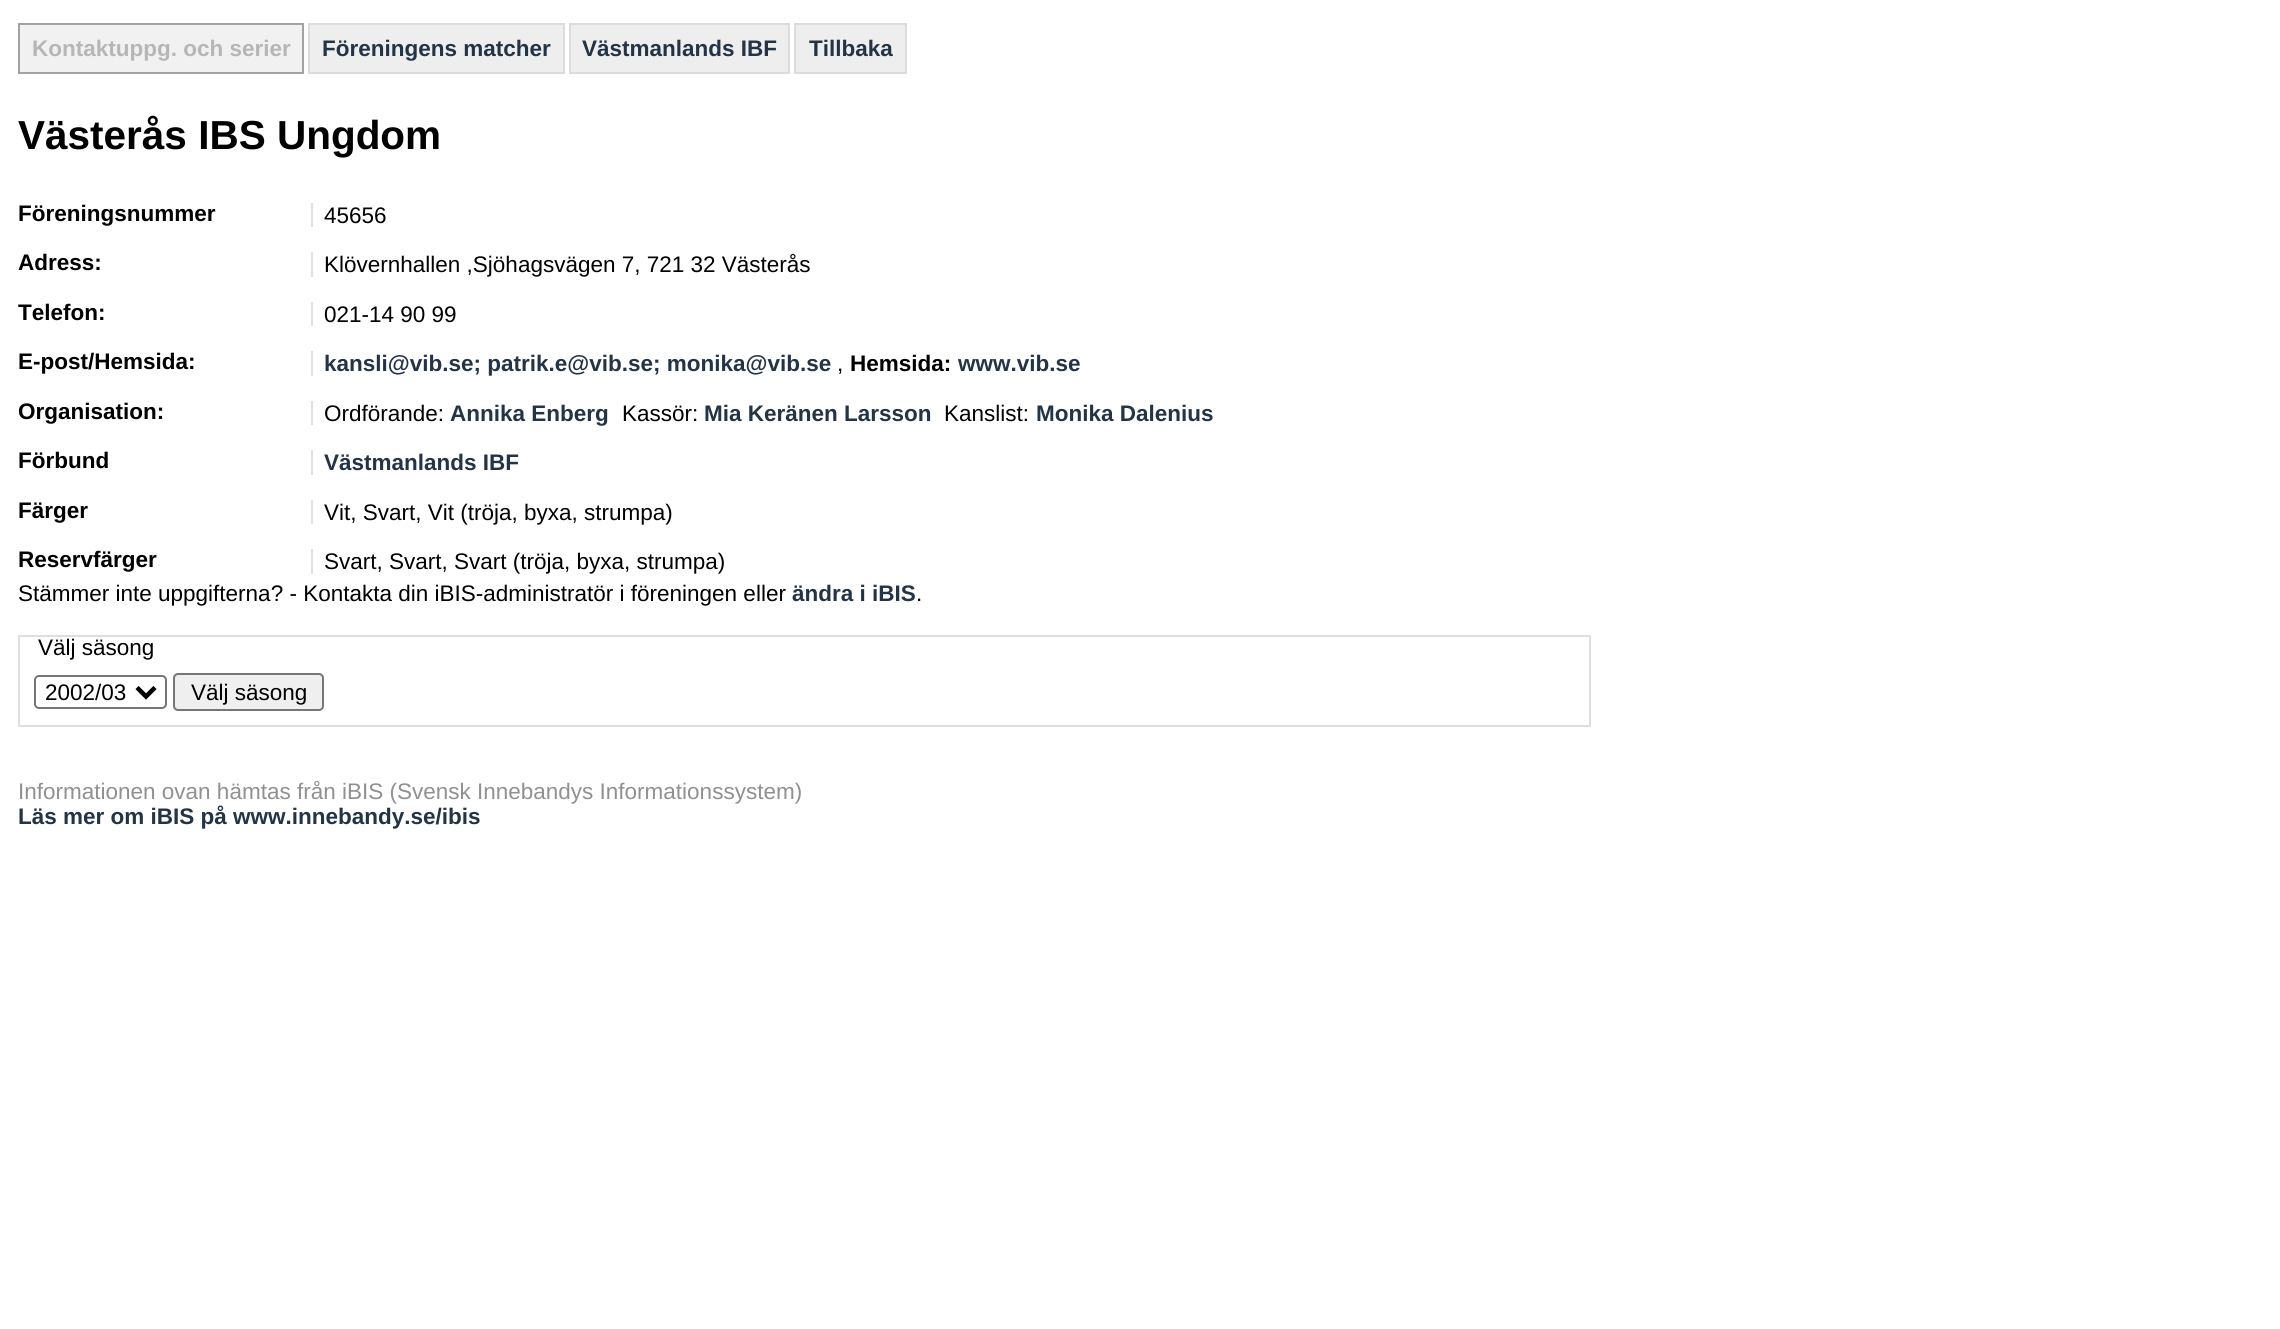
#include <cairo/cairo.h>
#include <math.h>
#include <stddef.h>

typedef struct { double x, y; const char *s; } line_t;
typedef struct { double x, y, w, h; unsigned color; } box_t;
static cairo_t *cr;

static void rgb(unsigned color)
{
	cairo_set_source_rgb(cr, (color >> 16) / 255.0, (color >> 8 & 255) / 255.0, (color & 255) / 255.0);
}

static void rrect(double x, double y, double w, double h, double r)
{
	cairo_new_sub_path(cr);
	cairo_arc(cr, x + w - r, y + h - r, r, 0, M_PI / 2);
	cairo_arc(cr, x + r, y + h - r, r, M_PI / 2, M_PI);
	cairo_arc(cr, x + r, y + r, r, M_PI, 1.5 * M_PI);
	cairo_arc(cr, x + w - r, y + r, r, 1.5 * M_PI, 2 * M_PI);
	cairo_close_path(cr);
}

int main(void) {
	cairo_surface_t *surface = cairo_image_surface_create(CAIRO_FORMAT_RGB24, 2280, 1329);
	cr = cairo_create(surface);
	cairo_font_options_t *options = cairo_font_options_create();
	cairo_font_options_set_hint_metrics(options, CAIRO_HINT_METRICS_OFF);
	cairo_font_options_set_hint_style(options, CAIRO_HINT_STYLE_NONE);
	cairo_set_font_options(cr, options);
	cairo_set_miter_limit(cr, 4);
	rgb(0xffffff);
	cairo_paint(cr);
	rgb(0xf1f1f1);
	cairo_rectangle(cr, 19, 24, 284, 49);
	cairo_fill_preserve(cr);
	rgb(0xa2a2a2);
	cairo_stroke(cr);
	rgb(0xeeeeee);
	cairo_rectangle(cr, 309, 24, 255, 49);
	cairo_fill_preserve(cr);
	rgb(0xdcdcdc);
	cairo_stroke(cr);
	rgb(0xeeeeee);
	cairo_rectangle(cr, 570, 24, 219, 49);
	cairo_fill_preserve(cr);
	rgb(0xdcdcdc);
	cairo_stroke(cr);
	rgb(0xeeeeee);
	cairo_rectangle(cr, 795, 24, 111, 49);
	cairo_fill_preserve(cr);
	rgb(0xdcdcdc);
	cairo_stroke(cr);
	{
		static const box_t items[] = {
			{311, 203, 2, 24, 0xdfdfdf},
			{311, 252, 2, 25, 0xdfdfdf},
			{311, 302, 2, 24, 0xdfdfdf},
			{311, 351, 2, 25, 0xdfdfdf},
			{311, 401, 2, 24, 0xdfdfdf},
			{311, 450, 2, 25, 0xdfdfdf},
			{311, 500, 2, 24, 0xdfdfdf},
			{311, 549, 2, 25, 0xdfdfdf},
		};
		for (size_t i = 0; i < sizeof items / sizeof *items; i++) {
			rgb(items[i].color);
			cairo_rectangle(cr, items[i].x, items[i].y, items[i].w, items[i].h);
			cairo_fill(cr);
		}
	}
	cairo_rectangle(cr, 19, 636, 1571, 90);
	cairo_stroke(cr);
	rrect(35, 676, 131, 32, 4);
	rgb(0x767676);
	cairo_stroke(cr);
	cairo_new_path(cr);
	cairo_move_to(cr, 137, 687.5);
	cairo_line_to(cr, 146, 696.5);
	cairo_line_to(cr, 155, 687.5);
	rgb(0x000000);
	cairo_set_line_width(cr, 4.5);
	cairo_stroke(cr);
	rgb(0xefefef);
	rrect(174, 674, 149, 36, 4);
	cairo_fill_preserve(cr);
	rgb(0x767676);
	cairo_set_line_width(cr, 2);
	cairo_stroke(cr);
	cairo_select_font_face(cr, "Liberation Sans", CAIRO_FONT_SLANT_NORMAL, CAIRO_FONT_WEIGHT_BOLD);
	cairo_set_font_size(cr, 22.5);
	rgb(0xb6b6b6);
	cairo_move_to(cr, 32, 56);
	cairo_show_text(cr, "Kontaktuppg. och serier");
	rgb(0x233446);
	{
		static const line_t items[] = {
			{322, 56, "Föreningens matcher"},
			{582, 56, "Västmanlands IBF"},
			{809, 56, "Tillbaka"},
		};
		for (size_t i = 0; i < sizeof items / sizeof *items; i++) {
			cairo_move_to(cr, items[i].x, items[i].y);
			cairo_show_text(cr, items[i].s);
		}
	}
	cairo_set_font_size(cr, 40.5);
	rgb(0x000000);
	cairo_move_to(cr, 18, 149);
	cairo_show_text(cr, "Västerås IBS Ungdom");
	cairo_set_font_size(cr, 22.5);
	cairo_move_to(cr, 18, 221);
	cairo_show_text(cr, "Föreningsnummer");
	cairo_select_font_face(cr, "Liberation Sans", CAIRO_FONT_SLANT_NORMAL, CAIRO_FONT_WEIGHT_NORMAL);
	cairo_move_to(cr, 324, 223);
	cairo_show_text(cr, "45656");
	cairo_select_font_face(cr, "Liberation Sans", CAIRO_FONT_SLANT_NORMAL, CAIRO_FONT_WEIGHT_BOLD);
	cairo_move_to(cr, 18, 270);
	cairo_show_text(cr, "Adress:");
	cairo_select_font_face(cr, "Liberation Sans", CAIRO_FONT_SLANT_NORMAL, CAIRO_FONT_WEIGHT_NORMAL);
	cairo_move_to(cr, 324, 272);
	cairo_show_text(cr, "Klövernhallen ,Sjöhagsvägen 7, 721 32 Västerås");
	cairo_select_font_face(cr, "Liberation Sans", CAIRO_FONT_SLANT_NORMAL, CAIRO_FONT_WEIGHT_BOLD);
	cairo_move_to(cr, 18, 320);
	cairo_show_text(cr, "Telefon:");
	cairo_select_font_face(cr, "Liberation Sans", CAIRO_FONT_SLANT_NORMAL, CAIRO_FONT_WEIGHT_NORMAL);
	cairo_move_to(cr, 324, 322);
	cairo_show_text(cr, "021-14 90 99");
	cairo_select_font_face(cr, "Liberation Sans", CAIRO_FONT_SLANT_NORMAL, CAIRO_FONT_WEIGHT_BOLD);
	cairo_move_to(cr, 18, 369);
	cairo_show_text(cr, "E-post/Hemsida:");
	rgb(0x233446);
	cairo_move_to(cr, 324, 371);
	cairo_show_text(cr, "kansli@vib.se; patrik.e@vib.se; monika@vib.se");
	cairo_select_font_face(cr, "Liberation Sans", CAIRO_FONT_SLANT_NORMAL, CAIRO_FONT_WEIGHT_NORMAL);
	rgb(0x000000);
	cairo_move_to(cr, 837, 371);
	cairo_show_text(cr, ",");
	cairo_select_font_face(cr, "Liberation Sans", CAIRO_FONT_SLANT_NORMAL, CAIRO_FONT_WEIGHT_BOLD);
	cairo_move_to(cr, 850, 371);
	cairo_show_text(cr, "Hemsida:");
	rgb(0x233446);
	cairo_move_to(cr, 958, 371);
	cairo_show_text(cr, "www.vib.se");
	rgb(0x000000);
	cairo_move_to(cr, 18, 419);
	cairo_show_text(cr, "Organisation:");
	cairo_select_font_face(cr, "Liberation Sans", CAIRO_FONT_SLANT_NORMAL, CAIRO_FONT_WEIGHT_NORMAL);
	cairo_move_to(cr, 324, 421);
	cairo_show_text(cr, "Ordförande:");
	cairo_select_font_face(cr, "Liberation Sans", CAIRO_FONT_SLANT_NORMAL, CAIRO_FONT_WEIGHT_BOLD);
	rgb(0x233446);
	cairo_move_to(cr, 450, 421);
	cairo_show_text(cr, "Annika Enberg");
	cairo_select_font_face(cr, "Liberation Sans", CAIRO_FONT_SLANT_NORMAL, CAIRO_FONT_WEIGHT_NORMAL);
	rgb(0x000000);
	cairo_move_to(cr, 622, 421);
	cairo_show_text(cr, "Kassör:");
	cairo_select_font_face(cr, "Liberation Sans", CAIRO_FONT_SLANT_NORMAL, CAIRO_FONT_WEIGHT_BOLD);
	rgb(0x233446);
	cairo_move_to(cr, 704, 421);
	cairo_show_text(cr, "Mia Keränen Larsson");
	cairo_select_font_face(cr, "Liberation Sans", CAIRO_FONT_SLANT_NORMAL, CAIRO_FONT_WEIGHT_NORMAL);
	rgb(0x000000);
	cairo_move_to(cr, 944, 421);
	cairo_show_text(cr, "Kanslist:");
	cairo_select_font_face(cr, "Liberation Sans", CAIRO_FONT_SLANT_NORMAL, CAIRO_FONT_WEIGHT_BOLD);
	rgb(0x233446);
	cairo_move_to(cr, 1036, 421);
	cairo_show_text(cr, "Monika Dalenius");
	rgb(0x000000);
	cairo_move_to(cr, 18, 468);
	cairo_show_text(cr, "Förbund");
	rgb(0x233446);
	cairo_move_to(cr, 324, 470);
	cairo_show_text(cr, "Västmanlands IBF");
	rgb(0x000000);
	cairo_move_to(cr, 18, 518);
	cairo_show_text(cr, "Färger");
	cairo_select_font_face(cr, "Liberation Sans", CAIRO_FONT_SLANT_NORMAL, CAIRO_FONT_WEIGHT_NORMAL);
	cairo_move_to(cr, 324, 520);
	cairo_show_text(cr, "Vit, Svart, Vit (tröja, byxa, strumpa)");
	cairo_select_font_face(cr, "Liberation Sans", CAIRO_FONT_SLANT_NORMAL, CAIRO_FONT_WEIGHT_BOLD);
	cairo_move_to(cr, 18, 567);
	cairo_show_text(cr, "Reservfärger");
	cairo_select_font_face(cr, "Liberation Sans", CAIRO_FONT_SLANT_NORMAL, CAIRO_FONT_WEIGHT_NORMAL);
	cairo_move_to(cr, 324, 569);
	cairo_show_text(cr, "Svart, Svart, Svart (tröja, byxa, strumpa)");
	cairo_move_to(cr, 18, 601);
	cairo_show_text(cr, "Stämmer inte uppgifterna? - Kontakta din iBIS-administratör i föreningen eller");
	cairo_select_font_face(cr, "Liberation Sans", CAIRO_FONT_SLANT_NORMAL, CAIRO_FONT_WEIGHT_BOLD);
	rgb(0x233446);
	cairo_move_to(cr, 792, 601);
	cairo_show_text(cr, "ändra i iBIS");
	cairo_select_font_face(cr, "Liberation Sans", CAIRO_FONT_SLANT_NORMAL, CAIRO_FONT_WEIGHT_NORMAL);
	rgb(0x000000);
	{
		static const line_t items[] = {
			{916, 601, "."},
			{38, 655, "Välj säsong"},
			{45, 700, "2002/03"},
			{191, 700, "Välj säsong"},
		};
		for (size_t i = 0; i < sizeof items / sizeof *items; i++) {
			cairo_move_to(cr, items[i].x, items[i].y);
			cairo_show_text(cr, items[i].s);
		}
	}
	rgb(0x909090);
	cairo_move_to(cr, 18, 799);
	cairo_show_text(cr, "Informationen ovan hämtas från iBIS (Svensk Innebandys Informationssystem)");
	cairo_select_font_face(cr, "Liberation Sans", CAIRO_FONT_SLANT_NORMAL, CAIRO_FONT_WEIGHT_BOLD);
	rgb(0x233446);
	cairo_move_to(cr, 18, 824);
	cairo_show_text(cr, "Läs mer om iBIS på www.innebandy.se/ibis");
	cairo_surface_write_to_png(surface, "page.png");
	cairo_font_options_destroy(options);
	cairo_destroy(cr);
	cairo_surface_destroy(surface);
	return 0;
}
